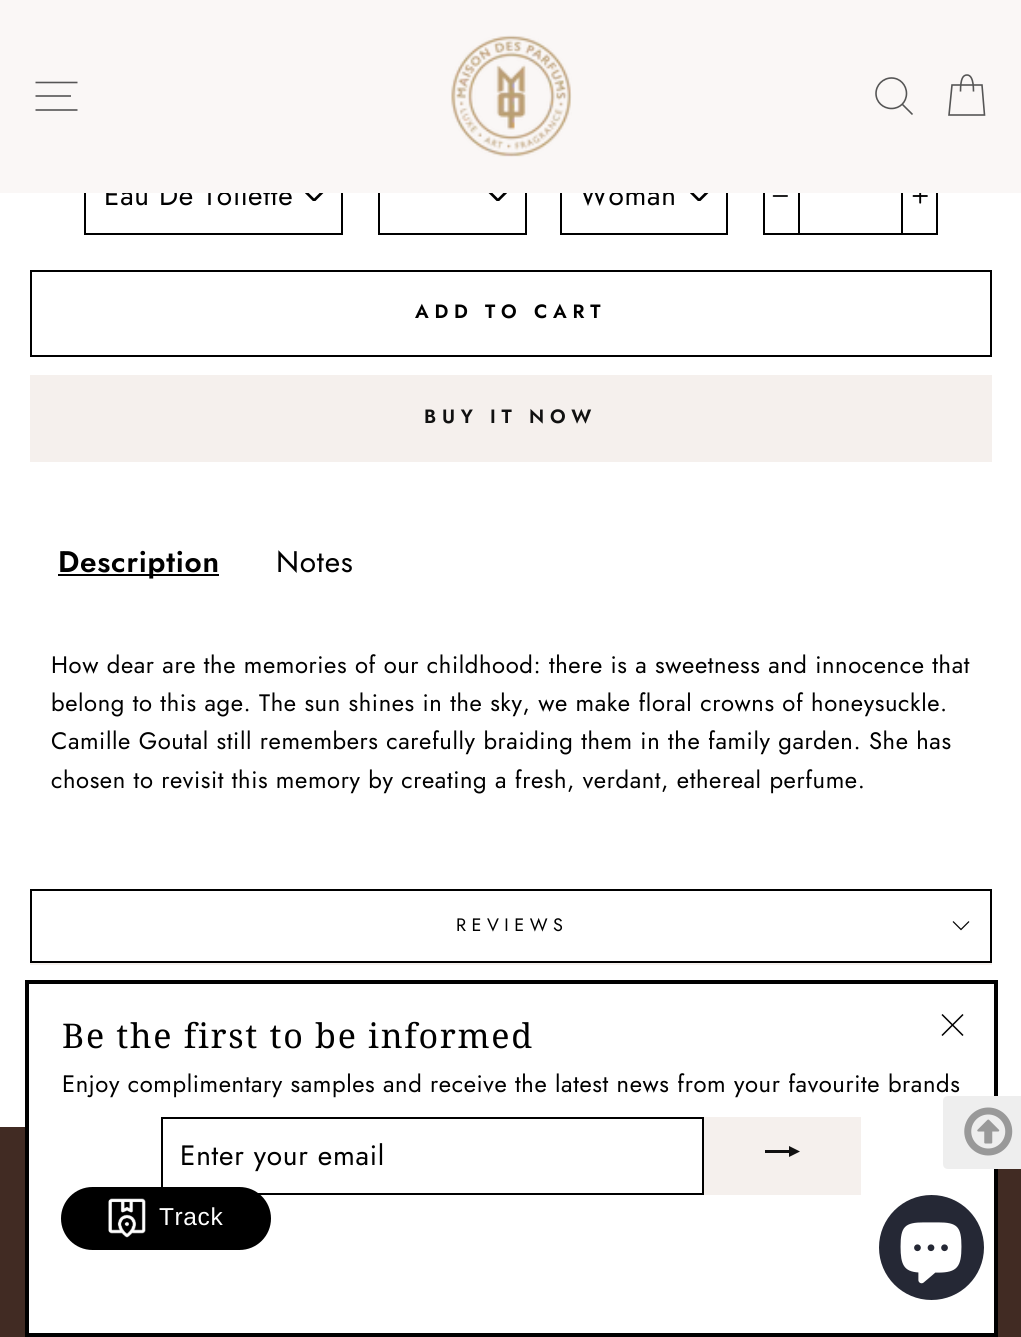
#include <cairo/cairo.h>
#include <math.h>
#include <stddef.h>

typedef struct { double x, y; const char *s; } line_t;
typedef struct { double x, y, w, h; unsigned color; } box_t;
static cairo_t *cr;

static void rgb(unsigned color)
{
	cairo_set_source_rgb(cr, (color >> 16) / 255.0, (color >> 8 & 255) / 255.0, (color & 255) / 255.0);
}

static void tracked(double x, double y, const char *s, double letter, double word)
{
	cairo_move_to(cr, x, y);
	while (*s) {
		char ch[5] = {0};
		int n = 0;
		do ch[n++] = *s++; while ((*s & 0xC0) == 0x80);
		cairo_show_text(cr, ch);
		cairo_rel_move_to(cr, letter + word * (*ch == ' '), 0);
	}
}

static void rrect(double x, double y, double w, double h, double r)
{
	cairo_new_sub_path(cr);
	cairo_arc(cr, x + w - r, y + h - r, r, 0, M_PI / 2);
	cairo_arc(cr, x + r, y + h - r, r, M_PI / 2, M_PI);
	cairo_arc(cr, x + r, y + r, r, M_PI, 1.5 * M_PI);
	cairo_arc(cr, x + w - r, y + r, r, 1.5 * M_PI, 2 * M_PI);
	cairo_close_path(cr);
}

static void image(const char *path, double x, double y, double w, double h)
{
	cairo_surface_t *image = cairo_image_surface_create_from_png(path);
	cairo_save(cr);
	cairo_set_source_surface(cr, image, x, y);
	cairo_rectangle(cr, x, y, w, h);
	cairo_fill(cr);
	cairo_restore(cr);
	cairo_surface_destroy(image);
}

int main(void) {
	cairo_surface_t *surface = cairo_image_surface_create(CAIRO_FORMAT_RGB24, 1021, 1337);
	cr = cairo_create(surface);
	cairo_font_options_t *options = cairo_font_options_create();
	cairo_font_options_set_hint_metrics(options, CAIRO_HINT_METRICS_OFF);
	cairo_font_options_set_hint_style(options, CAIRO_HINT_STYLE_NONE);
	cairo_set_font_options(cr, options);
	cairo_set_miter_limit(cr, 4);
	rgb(0xffffff);
	cairo_paint(cr);
	image("img/2.png", 305, 193, 19, 8);
	cairo_rectangle(cr, 85, 159, 257, 75);
	rgb(0x000000);
	cairo_stroke(cr);
	image("img/3.png", 488, 193, 19, 8);
	cairo_rectangle(cr, 379, 159, 147, 75);
	cairo_stroke(cr);
	image("img/2.png", 690, 193, 19, 8);
	cairo_rectangle(cr, 561, 159, 166, 75);
	cairo_stroke(cr);
	cairo_rectangle(cr, 764, 159, 173, 75);
	cairo_stroke(cr);
	cairo_rectangle(cr, 798, 193, 2, 42);
	cairo_fill(cr);
	image("img/4.png", 772, 195, 16, 2);
	cairo_rectangle(cr, 901, 193, 2, 42);
	cairo_fill(cr);
	image("img/5.png", 912, 193, 16, 11);
	cairo_rectangle(cr, 31, 271, 960, 85);
	cairo_stroke(cr);
	{
		static const box_t items[] = {
			{30, 375, 962, 87, 0xf5f0ed},
			{58, 574, 161, 2, 0x000000},
			{30, 963, 962, 2, 0xf5f0ed},
		};
		for (size_t i = 0; i < sizeof items / sizeof *items; i++) {
			rgb(items[i].color);
			cairo_rectangle(cr, items[i].x, items[i].y, items[i].w, items[i].h);
			cairo_fill(cr);
		}
	}
	cairo_rectangle(cr, 31, 890, 960, 72);
	rgb(0x000000);
	cairo_stroke(cr);
	cairo_new_path(cr);
	cairo_move_to(cr, 953, 921.5);
	cairo_line_to(cr, 961, 929.5);
	cairo_line_to(cr, 969, 921.5);
	cairo_set_line_width(cr, 1.2);
	cairo_stroke(cr);
	rgb(0x412b23);
	cairo_rectangle(cr, 0, 1127, 1021, 210);
	cairo_fill(cr);
	rgb(0xffffff);
	cairo_rectangle(cr, 29, 1127, 965, 206);
	cairo_fill(cr);
	cairo_rectangle(cr, 27, 982, 969, 353);
	rgb(0x000000);
	cairo_set_line_width(cr, 4);
	cairo_stroke(cr);
	cairo_new_path(cr);
	cairo_move_to(cr, 942, 1014.5);
	cairo_line_to(cr, 963, 1035.5);
	cairo_move_to(cr, 963, 1014.5);
	cairo_line_to(cr, 942, 1035.5);
	cairo_set_line_width(cr, 1.5);
	cairo_stroke(cr);
	cairo_rectangle(cr, 162, 1118, 541, 76);
	cairo_set_line_width(cr, 2);
	cairo_stroke(cr);
	rgb(0xf5f0ed);
	cairo_rectangle(cr, 704, 1117, 157, 78);
	cairo_fill(cr);
	rgb(0x111111);
	cairo_new_path(cr);
	cairo_move_to(cr, 765, 1153);
	cairo_line_to(cr, 765, 1150);
	cairo_line_to(cr, 789, 1150);
	cairo_line_to(cr, 789, 1146);
	cairo_line_to(cr, 800, 1151.5);
	cairo_line_to(cr, 789, 1157);
	cairo_line_to(cr, 789, 1153);
	cairo_close_path(cr);
	cairo_fill(cr);
	rgb(0x000000);
	rrect(61, 1187, 210, 63, 31.5);
	cairo_fill(cr);
	image("img/7.png", 108, 1198, 38, 40);
	rgb(0x252835);
	cairo_arc(cr, 931.5, 1247.5, 52.5, 0, 2 * M_PI);
	cairo_fill(cr);
	image("img/8.png", 900, 1222, 62, 62);
	cairo_select_font_face(cr, "Jost", CAIRO_FONT_SLANT_NORMAL, CAIRO_FONT_WEIGHT_NORMAL);
	cairo_set_font_size(cr, 28);
	rgb(0x000000);
	tracked(104, 205, "Eau De Toilette", 0.75, 0);
	tracked(580, 205, "Woman", 0.75, 0);
	rgb(0xfaf7f6);
	cairo_rectangle(cr, 0, 0, 1021, 193);
	cairo_fill(cr);
	image("img/1.png", 451, 35, 121, 122);
	cairo_new_path(cr);
	cairo_move_to(cr, 960.5, 91.5);
	cairo_curve_to(cr, 960.5, 78.5, 963, 75, 967, 75);
	cairo_curve_to(cr, 970.5, 75, 973.5, 78.5, 973.5, 91.5);
	cairo_move_to(cr, 952, 85);
	cairo_line_to(cr, 982, 85);
	cairo_line_to(cr, 984.5, 115);
	cairo_line_to(cr, 949, 115);
	cairo_close_path(cr);
	rgb(0x555555);
	cairo_set_line_width(cr, 1.6);
	cairo_stroke(cr);
	cairo_new_path(cr);
	cairo_move_to(cr, 906.5, 93.5);
	cairo_curve_to(cr, 906.5, 102, 900, 108.5, 891.5, 108.5);
	cairo_curve_to(cr, 883, 108.5, 876, 102, 876, 93.5);
	cairo_curve_to(cr, 876, 85, 883, 78, 891.5, 78);
	cairo_curve_to(cr, 900, 78, 906.5, 85, 906.5, 93.5);
	cairo_close_path(cr);
	cairo_move_to(cr, 912.5, 114.5);
	cairo_line_to(cr, 902.5, 104.5);
	cairo_stroke(cr);
	cairo_new_path(cr);
	cairo_move_to(cr, 35.5, 82.5);
	cairo_line_to(cr, 77.5, 82.5);
	cairo_move_to(cr, 35.5, 96);
	cairo_line_to(cr, 71, 96);
	cairo_move_to(cr, 35.5, 110);
	cairo_line_to(cr, 77.5, 110);
	cairo_stroke(cr);
	cairo_select_font_face(cr, "Jost SemiBold", CAIRO_FONT_SLANT_NORMAL, CAIRO_FONT_WEIGHT_NORMAL);
	cairo_set_font_size(cr, 19.25);
	rgb(0x000000);
	tracked(415, 318, "ADD TO CART", 5.75, 0);
	rgb(0x111111);
	tracked(424, 423, "BUY IT NOW", 5.75, 0);
	cairo_set_font_size(cr, 29.75);
	rgb(0x000000);
	tracked(58, 572, "Description", 0.75, 0);
	cairo_select_font_face(cr, "Jost", CAIRO_FONT_SLANT_NORMAL, CAIRO_FONT_WEIGHT_NORMAL);
	tracked(276, 572, "Notes", 0.75, 0);
	cairo_set_font_size(cr, 23.8);
	{
		static const line_t items[] = {
			{51, 673, "How dear are the memories of our childhood: there is a sweetness and innocence that"},
			{51, 711, "belong to this age. The sun shines in the sky, we make floral crowns of honeysuckle."},
			{51, 749, "Camille Goutal still remembers carefully braiding them in the family garden. She has"},
			{51, 788, "chosen to revisit this memory by creating a fresh, verdant, ethereal perfume."},
		};
		for (size_t i = 0; i < sizeof items / sizeof *items; i++) {
			tracked(items[i].x, items[i].y, items[i].s, 0.6, 0);
		}
	}
	cairo_set_font_size(cr, 18);
	tracked(456, 931, "REVIEWS", 5.5, 0);
	cairo_select_font_face(cr, "Noto Serif", CAIRO_FONT_SLANT_NORMAL, CAIRO_FONT_WEIGHT_NORMAL);
	cairo_set_font_size(cr, 34);
	tracked(62, 1048, "Be the first to be informed", 1.7, 0);
	cairo_select_font_face(cr, "Jost", CAIRO_FONT_SLANT_NORMAL, CAIRO_FONT_WEIGHT_NORMAL);
	cairo_set_font_size(cr, 23.8);
	tracked(62, 1092, "Enjoy complimentary samples and receive the latest news from your favourite brands", 0.6, 0);
	cairo_set_font_size(cr, 28);
	tracked(180, 1165, "Enter your email", 0.75, 0);
	rgb(0xeeeeee);
	cairo_new_path(cr);
	cairo_move_to(cr, 948, 1096);
	cairo_line_to(cr, 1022, 1096);
	cairo_line_to(cr, 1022, 1169);
	cairo_line_to(cr, 948, 1169);
	cairo_curve_to(cr, 945, 1169, 943, 1167, 943, 1164);
	cairo_line_to(cr, 943, 1101);
	cairo_curve_to(cr, 943, 1098, 945, 1096, 948, 1096);
	cairo_close_path(cr);
	cairo_fill(cr);
	image("img/6.png", 964, 1107, 49, 49);
	cairo_select_font_face(cr, "Liberation Sans", CAIRO_FONT_SLANT_NORMAL, CAIRO_FONT_WEIGHT_NORMAL);
	cairo_set_font_size(cr, 24.5);
	rgb(0xffffff);
	tracked(159, 1225, "Track", 0.6, 0);
	cairo_surface_write_to_png(surface, "page.png");
	cairo_font_options_destroy(options);
	cairo_destroy(cr);
	cairo_surface_destroy(surface);
	return 0;
}
